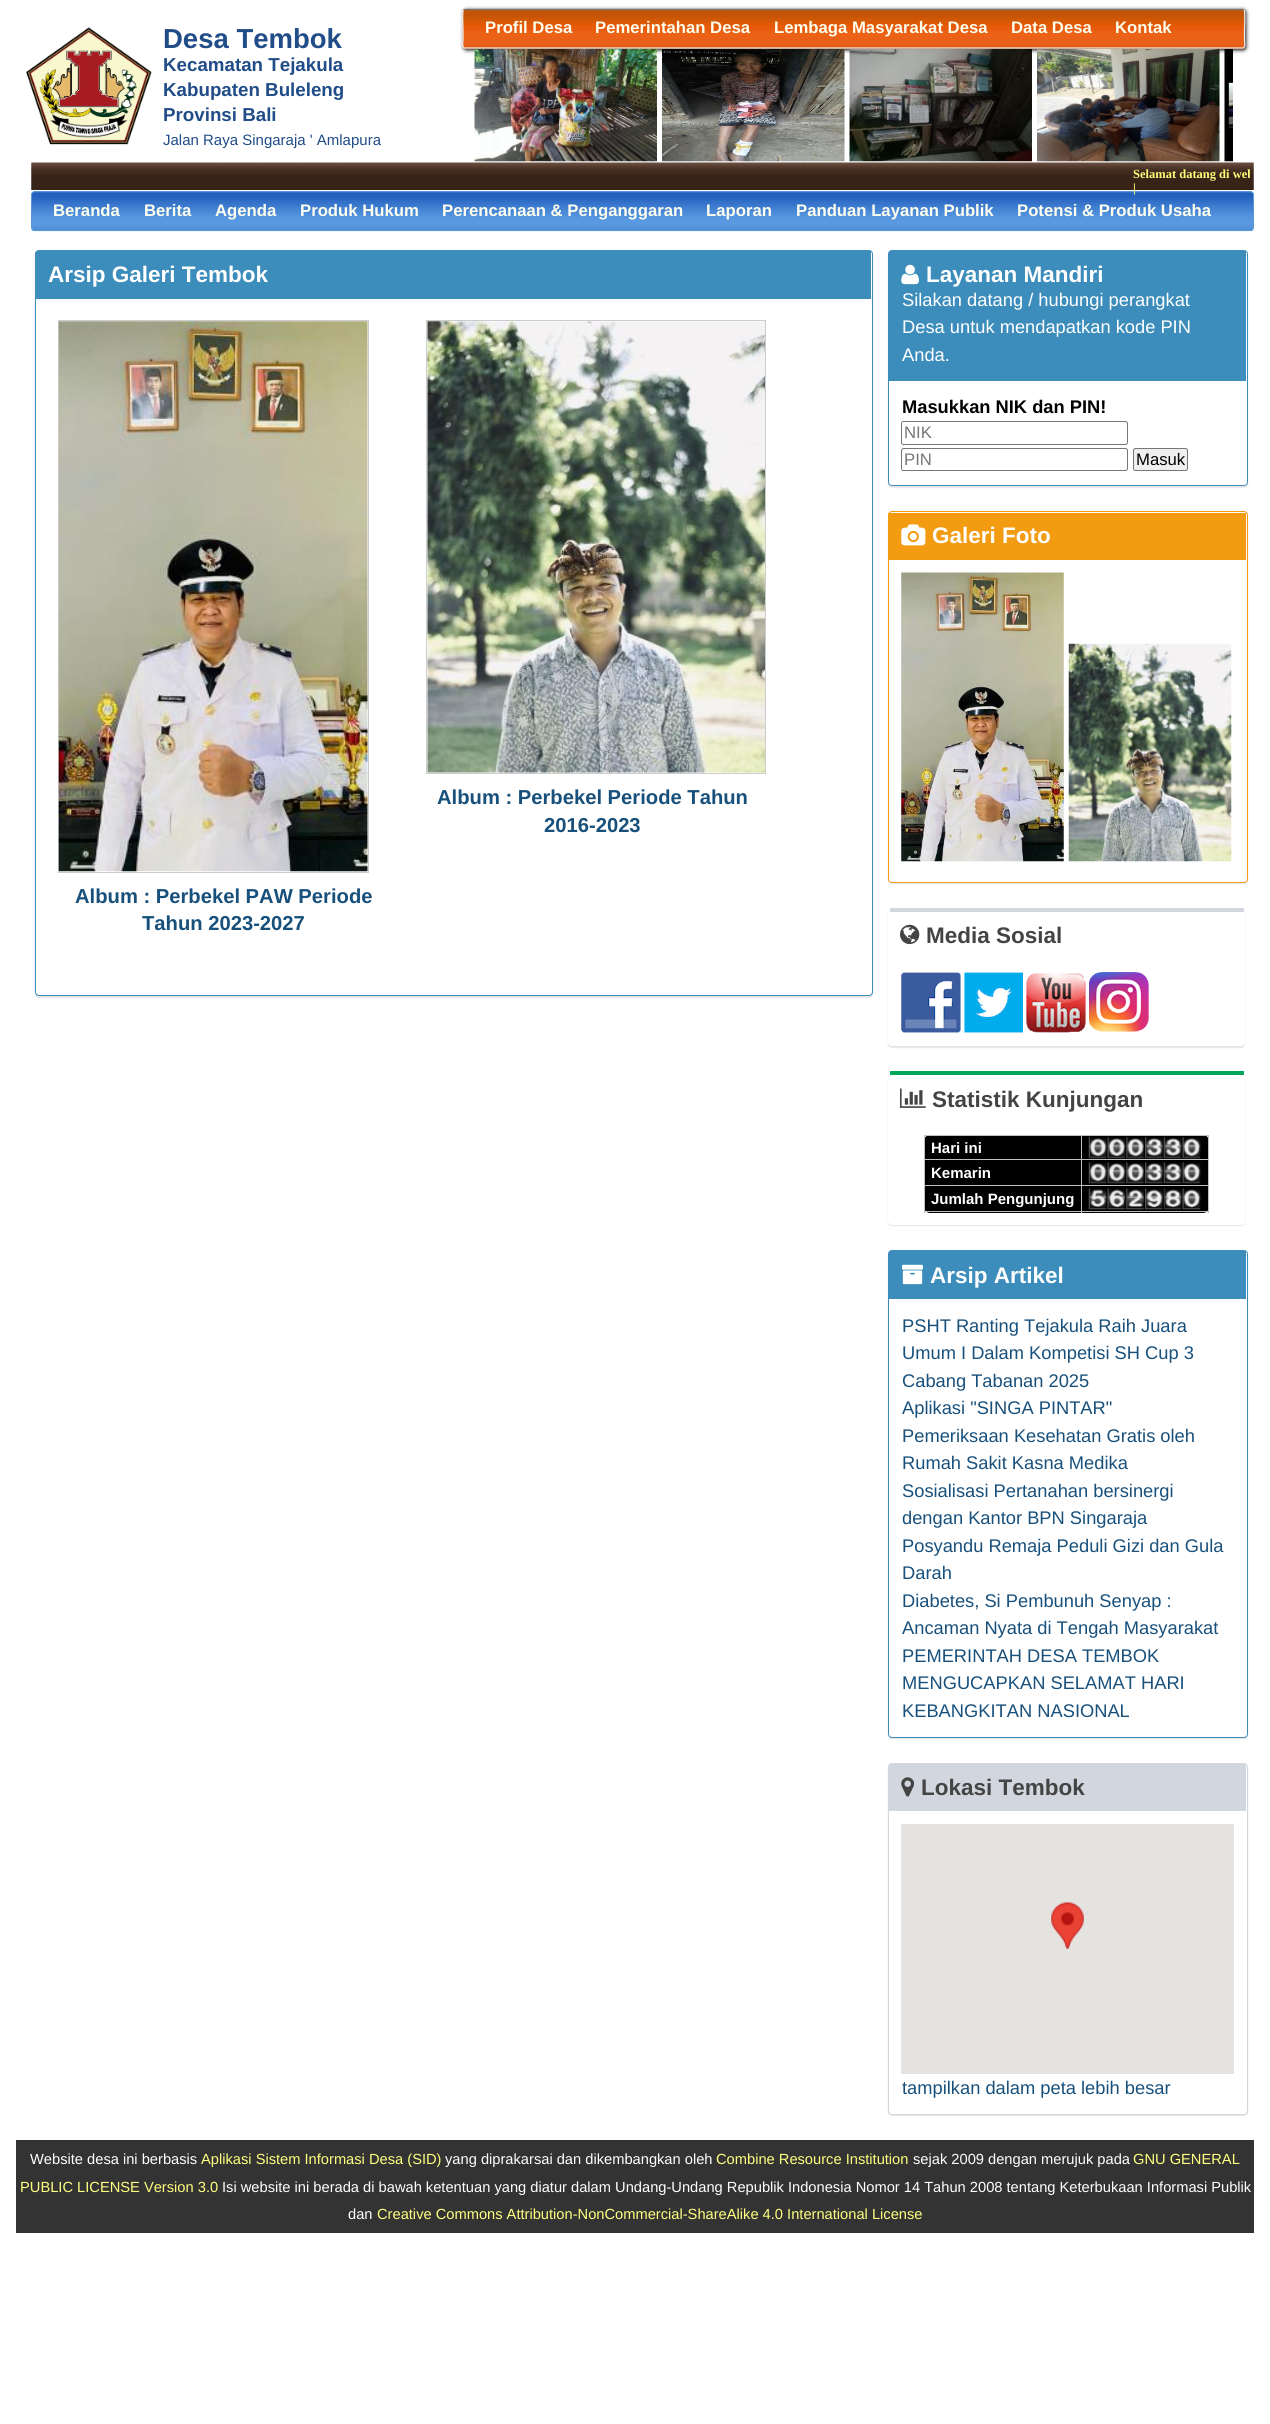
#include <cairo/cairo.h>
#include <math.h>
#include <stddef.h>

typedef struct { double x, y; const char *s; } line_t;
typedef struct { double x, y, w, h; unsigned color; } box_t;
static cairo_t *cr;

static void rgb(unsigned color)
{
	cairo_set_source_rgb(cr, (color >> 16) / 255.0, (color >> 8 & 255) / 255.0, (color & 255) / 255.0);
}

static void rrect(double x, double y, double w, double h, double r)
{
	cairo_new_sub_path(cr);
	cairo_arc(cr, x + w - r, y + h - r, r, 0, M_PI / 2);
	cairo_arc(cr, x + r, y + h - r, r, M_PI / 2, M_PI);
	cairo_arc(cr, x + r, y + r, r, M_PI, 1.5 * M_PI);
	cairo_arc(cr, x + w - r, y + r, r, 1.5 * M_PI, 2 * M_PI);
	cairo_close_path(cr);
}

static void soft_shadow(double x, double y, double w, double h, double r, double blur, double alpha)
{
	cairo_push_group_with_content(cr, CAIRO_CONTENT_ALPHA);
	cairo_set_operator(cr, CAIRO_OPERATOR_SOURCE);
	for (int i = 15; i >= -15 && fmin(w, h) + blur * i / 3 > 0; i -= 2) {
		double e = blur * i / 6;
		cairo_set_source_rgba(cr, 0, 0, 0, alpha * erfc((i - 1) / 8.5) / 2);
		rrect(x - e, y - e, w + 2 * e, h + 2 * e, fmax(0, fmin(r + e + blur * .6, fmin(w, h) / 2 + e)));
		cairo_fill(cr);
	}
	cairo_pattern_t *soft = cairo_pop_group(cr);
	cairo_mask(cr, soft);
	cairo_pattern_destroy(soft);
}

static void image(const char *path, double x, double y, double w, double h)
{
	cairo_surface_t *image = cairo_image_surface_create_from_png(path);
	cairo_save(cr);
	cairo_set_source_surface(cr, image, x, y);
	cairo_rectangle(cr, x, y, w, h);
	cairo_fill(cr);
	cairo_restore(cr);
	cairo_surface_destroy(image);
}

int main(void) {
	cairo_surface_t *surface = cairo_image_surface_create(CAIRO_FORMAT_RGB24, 1270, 2424);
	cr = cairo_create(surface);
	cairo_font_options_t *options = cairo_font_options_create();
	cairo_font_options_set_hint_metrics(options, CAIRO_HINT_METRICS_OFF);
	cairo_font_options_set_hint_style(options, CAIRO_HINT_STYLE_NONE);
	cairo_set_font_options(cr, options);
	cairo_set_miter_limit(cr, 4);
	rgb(0xffffff);
	cairo_paint(cr);
	image("img/1.png", 26, 27, 126, 118);
	rgb(0x000000);
	soft_shadow(464, 10, 782, 40, 2.5, 2, 1);
	image("img/2.png", 462, 8, 783, 41);
	cairo_new_path(cr);
	cairo_move_to(cr, 463.5, 10);
	cairo_line_to(cr, 465, 9.5);
	cairo_line_to(cr, 1242.5, 9.5);
	cairo_line_to(cr, 1244, 10);
	rgb(0x777777);
	cairo_set_line_width(cr, 1.2);
	cairo_stroke(cr);
	cairo_new_path(cr);
	cairo_move_to(cr, 1244, 10);
	cairo_curve_to(cr, 1245.5, 11.5, 1244.5, 26, 1244.5, 29);
	cairo_line_to(cr, 1244.5, 40.5);
	cairo_curve_to(cr, 1244.5, 41, 1246, 48, 1242.5, 48);
	cairo_line_to(cr, 465, 48);
	cairo_curve_to(cr, 461.5, 48, 463, 41, 463, 40.5);
	cairo_line_to(cr, 463, 29);
	cairo_curve_to(cr, 463, 26, 462, 11.5, 463.5, 10);
	rgb(0xeeeeee);
	cairo_stroke(cr);
	image("img/3.png", 474, 49, 183, 113);
	image("img/4.png", 662, 49, 183, 113);
	image("img/5.png", 849, 49, 183, 113);
	image("img/6.png", 1037, 49, 183, 113);
	image("img/7.png", 1224, 49, 9, 113);
	image("img/8.png", 31, 162, 1223, 28);
	image("img/9.png", 31, 191, 1223, 41);
	rrect(31.5, 191.5, 1222, 39, 3.5);
	rgb(0x5898d8);
	cairo_set_line_width(cr, 1);
	cairo_stroke(cr);
	rgb(0x000000);
	soft_shadow(35, 251, 838, 747, 4, 0.5, 0.1);
	rgb(0xffffff);
	rrect(35.5, 250.5, 837, 745, 3.5);
	cairo_fill_preserve(cr);
	rgb(0x3c8dbc);
	cairo_stroke(cr);
	cairo_rectangle(cr, 36, 251, 835, 48);
	cairo_fill(cr);
	cairo_rectangle(cr, 426.5, 320.5, 339, 453);
	rgb(0xcccccc);
	cairo_stroke(cr);
	image("img/10.png", 427, 321, 338, 452);
	cairo_rectangle(cr, 58.5, 320.5, 310, 552);
	cairo_stroke(cr);
	image("img/11.png", 58, 321, 310, 551);
	rgb(0x000000);
	soft_shadow(888, 251, 360, 237, 4, 0.5, 0.1);
	rgb(0xffffff);
	rrect(888.5, 250.5, 359, 235, 3.5);
	cairo_fill_preserve(cr);
	rgb(0x3c8dbc);
	cairo_stroke(cr);
	cairo_rectangle(cr, 889, 251, 357, 130);
	cairo_fill(cr);
	image("img/12.png", 901, 264, 18, 21);
	rrect(901.5, 421.5, 226, 23, 2);
	rgb(0x767676);
	cairo_stroke(cr);
	rrect(901.5, 448.5, 226, 22, 2);
	cairo_stroke(cr);
	rgb(0xefefef);
	rrect(1133.5, 448.5, 54, 22, 2);
	cairo_fill_preserve(cr);
	rgb(0x767676);
	cairo_stroke(cr);
	rgb(0x000000);
	soft_shadow(888, 513, 360, 371, 4, 0.5, 0.1);
	rgb(0xffffff);
	rrect(888.5, 511.5, 359, 371, 3.5);
	cairo_fill_preserve(cr);
	rgb(0xf39c12);
	cairo_stroke(cr);
	cairo_rectangle(cr, 889, 513, 357, 47);
	cairo_fill(cr);
	image("img/13.png", 901, 524, 25, 22);
	image("img/14.png", 901, 572, 163, 290);
	image("img/15.png", 1068, 643, 164, 219);
	rgb(0x000000);
	soft_shadow(888, 909, 357, 139, 4, 0.5, 0.1);
	rgb(0xffffff);
	rrect(888, 908, 357, 138, 4);
	cairo_fill(cr);
	rgb(0xd2d6de);
	cairo_rectangle(cr, 890, 908, 354, 4);
	cairo_fill(cr);
	image("img/16.png", 900, 924, 20, 21);
	image("img/17.png", 901, 972, 60, 61);
	image("img/18.png", 964, 972, 59, 61);
	image("img/19.png", 1026, 973, 60, 60);
	image("img/20.png", 1089, 972, 60, 60);
	rgb(0x000000);
	soft_shadow(888, 1073, 357, 153, 4, 0.5, 0.1);
	rgb(0xffffff);
	rrect(888, 1071, 357, 154, 4);
	cairo_fill(cr);
	rgb(0x00a65a);
	cairo_rectangle(cr, 890, 1071, 354, 4);
	cairo_fill(cr);
	image("img/21.png", 900, 1088, 26, 20);
	rgb(0x000000);
	rrect(924, 1135, 285, 78, 6);
	cairo_fill(cr);
	{
		static const box_t items[] = {
			{924, 1135, 285, 1, 0xc0c0c0},
			{1208, 1135, 1, 78, 0xc0c0c0},
			{924, 1211, 285, 1, 0xc0c0c0},
			{924, 1135, 1, 78, 0xc0c0c0},
			{1081, 1185, 1, 28, 0xc0c0c0},
			{1081, 1185, 128, 1, 0xc0c0c0},
			{1081, 1159, 1, 27, 0xc0c0c0},
			{1081, 1159, 128, 1, 0xc0c0c0},
			{1081, 1135, 1, 25, 0xc0c0c0},
			{924, 1159, 159, 1, 0xc0c0c0},
		};
		for (size_t i = 0; i < sizeof items / sizeof *items; i++) {
			rgb(items[i].color);
			cairo_rectangle(cr, items[i].x, items[i].y, items[i].w, items[i].h);
			cairo_fill(cr);
		}
	}
	image("img/22.png", 1088, 1137, 20, 22);
	image("img/23.png", 1107, 1137, 19, 22);
	image("img/24.png", 1126, 1137, 19, 22);
	image("img/25.png", 1145, 1137, 19, 22);
	image("img/26.png", 1163, 1137, 20, 22);
	image("img/27.png", 1182, 1137, 19, 22);
	cairo_rectangle(cr, 924, 1185, 159, 1);
	cairo_fill(cr);
	image("img/28.png", 1088, 1162, 20, 22);
	image("img/29.png", 1107, 1162, 19, 22);
	image("img/30.png", 1126, 1162, 19, 22);
	image("img/31.png", 1145, 1162, 19, 22);
	image("img/32.png", 1163, 1162, 20, 22);
	image("img/33.png", 1182, 1162, 19, 22);
	image("img/34.png", 1088, 1188, 20, 22);
	image("img/35.png", 1107, 1188, 19, 22);
	image("img/36.png", 1126, 1188, 19, 22);
	image("img/37.png", 1145, 1188, 19, 22);
	image("img/38.png", 1163, 1188, 20, 22);
	image("img/39.png", 1182, 1188, 19, 22);
	rgb(0x000000);
	soft_shadow(888, 1251, 360, 488, 4, 0.5, 0.1);
	rgb(0xffffff);
	rrect(888.5, 1250.5, 359, 487, 3.5);
	cairo_fill_preserve(cr);
	rgb(0x3c8dbc);
	cairo_stroke(cr);
	cairo_rectangle(cr, 889, 1251, 357, 48);
	cairo_fill(cr);
	image("img/40.png", 902, 1264, 21, 21);
	rgb(0x000000);
	soft_shadow(888, 1764, 360, 352, 4, 0.5, 0.1);
	rgb(0xffffff);
	rrect(888.5, 1763.5, 359, 351, 3.5);
	cairo_fill_preserve(cr);
	rgb(0xd2d6de);
	cairo_stroke(cr);
	cairo_rectangle(cr, 889, 1764, 357, 47);
	cairo_fill(cr);
	image("img/41.png", 901, 1777, 14, 20);
	rgb(0xe5e3df);
	cairo_rectangle(cr, 901, 1824, 333, 250);
	cairo_fill(cr);
	image("img/42.png", 1051, 1902, 33, 47);
	rgb(0x333333);
	cairo_rectangle(cr, 16, 2140, 1238, 93);
	cairo_fill(cr);
	cairo_select_font_face(cr, "Liberation Sans", CAIRO_FONT_SLANT_NORMAL, CAIRO_FONT_WEIGHT_BOLD);
	cairo_set_font_size(cr, 27.5);
	rgb(0x204c88);
	cairo_move_to(cr, 163, 48);
	cairo_show_text(cr, "Desa Tembok");
	cairo_set_font_size(cr, 18.75);
	{
		static const line_t items[] = {
			{163, 71, "Kecamatan Tejakula"},
			{163, 96, "Kabupaten Buleleng"},
			{163, 121, "Provinsi Bali"},
		};
		for (size_t i = 0; i < sizeof items / sizeof *items; i++) {
			cairo_move_to(cr, items[i].x, items[i].y);
			cairo_show_text(cr, items[i].s);
		}
	}
	cairo_select_font_face(cr, "Liberation Sans", CAIRO_FONT_SLANT_NORMAL, CAIRO_FONT_WEIGHT_NORMAL);
	cairo_set_font_size(cr, 15);
	cairo_move_to(cr, 163, 145);
	cairo_show_text(cr, "Jalan Raya Singaraja ' Amlapura");
	cairo_select_font_face(cr, "Liberation Sans", CAIRO_FONT_SLANT_NORMAL, CAIRO_FONT_WEIGHT_BOLD);
	cairo_set_font_size(cr, 16.7);
	rgb(0xffffef);
	{
		static const line_t items[] = {
			{485, 33, "Profil Desa"},
			{595, 33, "Pemerintahan Desa"},
			{774, 33, "Lembaga Masyarakat Desa"},
			{1011, 33, "Data Desa"},
			{1115, 33, "Kontak"},
		};
		for (size_t i = 0; i < sizeof items / sizeof *items; i++) {
			cairo_move_to(cr, items[i].x, items[i].y);
			cairo_show_text(cr, items[i].s);
		}
	}
	cairo_save(cr);
	cairo_rectangle(cr, 38, 168, 1212, 27);
	cairo_clip(cr);
	cairo_select_font_face(cr, "Liberation Serif", CAIRO_FONT_SLANT_NORMAL, CAIRO_FONT_WEIGHT_BOLD);
	cairo_set_font_size(cr, 12.5);
	rgb(0xfefe77);
	cairo_move_to(cr, 1133, 178);
	cairo_show_text(cr, "Selamat datang di web");
	cairo_restore(cr);
	cairo_select_font_face(cr, "Liberation Serif", CAIRO_FONT_SLANT_NORMAL, CAIRO_FONT_WEIGHT_BOLD);
	cairo_set_font_size(cr, 12.5);
	rgb(0xfefe77);
	cairo_move_to(cr, 1133, 192);
	cairo_show_text(cr, "|");
	cairo_select_font_face(cr, "Liberation Sans", CAIRO_FONT_SLANT_NORMAL, CAIRO_FONT_WEIGHT_BOLD);
	cairo_set_font_size(cr, 16.7);
	rgb(0xffffef);
	{
		static const line_t items[] = {
			{53, 216, "Beranda"},
			{144, 216, "Berita"},
			{215, 216, "Agenda"},
			{300, 216, "Produk Hukum"},
			{442, 216, "Perencanaan & Penganggaran"},
			{706, 216, "Laporan"},
			{796, 216, "Panduan Layanan Publik"},
			{1017, 216, "Potensi & Produk Usaha"},
		};
		for (size_t i = 0; i < sizeof items / sizeof *items; i++) {
			cairo_move_to(cr, items[i].x, items[i].y);
			cairo_show_text(cr, items[i].s);
		}
	}
	cairo_set_font_size(cr, 22.5);
	rgb(0xffffff);
	cairo_move_to(cr, 48, 282);
	cairo_show_text(cr, "Arsip Galeri Tembok");
	cairo_set_font_size(cr, 20.2);
	rgb(0x18507c);
	{
		static const line_t items[] = {
			{437, 804, "Album : Perbekel Periode Tahun"},
			{544, 832, "2016-2023"},
			{75, 903, "Album : Perbekel PAW Periode"},
			{142, 930, "Tahun 2023-2027"},
		};
		for (size_t i = 0; i < sizeof items / sizeof *items; i++) {
			cairo_move_to(cr, items[i].x, items[i].y);
			cairo_show_text(cr, items[i].s);
		}
	}
	cairo_set_font_size(cr, 22.5);
	rgb(0xffffff);
	cairo_move_to(cr, 926, 282);
	cairo_show_text(cr, "Layanan Mandiri");
	cairo_select_font_face(cr, "Liberation Sans", CAIRO_FONT_SLANT_NORMAL, CAIRO_FONT_WEIGHT_NORMAL);
	cairo_set_font_size(cr, 18.3);
	{
		static const line_t items[] = {
			{902, 306, "Silakan datang / hubungi perangkat"},
			{902, 333, "Desa untuk mendapatkan kode PIN"},
			{902, 361, "Anda."},
		};
		for (size_t i = 0; i < sizeof items / sizeof *items; i++) {
			cairo_move_to(cr, items[i].x, items[i].y);
			cairo_show_text(cr, items[i].s);
		}
	}
	cairo_select_font_face(cr, "Liberation Sans", CAIRO_FONT_SLANT_NORMAL, CAIRO_FONT_WEIGHT_BOLD);
	rgb(0x000000);
	cairo_move_to(cr, 902, 413);
	cairo_show_text(cr, "Masukkan NIK dan PIN!");
	cairo_select_font_face(cr, "Liberation Sans", CAIRO_FONT_SLANT_NORMAL, CAIRO_FONT_WEIGHT_NORMAL);
	cairo_set_font_size(cr, 16.7);
	rgb(0x757575);
	cairo_move_to(cr, 904, 438);
	cairo_show_text(cr, "NIK");
	cairo_move_to(cr, 904, 465);
	cairo_show_text(cr, "PIN");
	rgb(0x000000);
	cairo_move_to(cr, 1136, 465);
	cairo_show_text(cr, "Masuk");
	cairo_select_font_face(cr, "Liberation Sans", CAIRO_FONT_SLANT_NORMAL, CAIRO_FONT_WEIGHT_BOLD);
	cairo_set_font_size(cr, 22.5);
	rgb(0xffffff);
	cairo_move_to(cr, 932, 543);
	cairo_show_text(cr, "Galeri Foto");
	rgb(0x444444);
	cairo_move_to(cr, 926, 943);
	cairo_show_text(cr, "Media Sosial");
	cairo_move_to(cr, 932, 1107);
	cairo_show_text(cr, "Statistik Kunjungan");
	cairo_set_font_size(cr, 15);
	rgb(0xffffff);
	{
		static const line_t items[] = {
			{931, 1153, "Hari ini"},
			{931, 1178, "Kemarin"},
			{931, 1204, "Jumlah Pengunjung"},
		};
		for (size_t i = 0; i < sizeof items / sizeof *items; i++) {
			cairo_move_to(cr, items[i].x, items[i].y);
			cairo_show_text(cr, items[i].s);
		}
	}
	cairo_set_font_size(cr, 22.5);
	cairo_move_to(cr, 930, 1283);
	cairo_show_text(cr, "Arsip Artikel");
	cairo_select_font_face(cr, "Liberation Sans", CAIRO_FONT_SLANT_NORMAL, CAIRO_FONT_WEIGHT_NORMAL);
	cairo_set_font_size(cr, 18.3);
	rgb(0x18507c);
	{
		static const line_t items[] = {
			{902, 1332, "PSHT Ranting Tejakula Raih Juara"},
			{902, 1359, "Umum I Dalam Kompetisi SH Cup 3"},
			{902, 1387, "Cabang Tabanan 2025"},
			{902, 1414, "Aplikasi \"SINGA PINTAR\""},
			{902, 1442, "Pemeriksaan Kesehatan Gratis oleh"},
			{902, 1469, "Rumah Sakit Kasna Medika"},
			{902, 1497, "Sosialisasi Pertanahan bersinergi"},
			{902, 1524, "dengan Kantor BPN Singaraja"},
			{902, 1552, "Posyandu Remaja Peduli Gizi dan Gula"},
			{902, 1579, "Darah"},
			{902, 1607, "Diabetes, Si Pembunuh Senyap :"},
			{902, 1634, "Ancaman Nyata di Tengah Masyarakat"},
			{902, 1662, "PEMERINTAH DESA TEMBOK"},
			{902, 1689, "MENGUCAPKAN SELAMAT HARI"},
			{902, 1717, "KEBANGKITAN NASIONAL"},
		};
		for (size_t i = 0; i < sizeof items / sizeof *items; i++) {
			cairo_move_to(cr, items[i].x, items[i].y);
			cairo_show_text(cr, items[i].s);
		}
	}
	cairo_select_font_face(cr, "Liberation Sans", CAIRO_FONT_SLANT_NORMAL, CAIRO_FONT_WEIGHT_BOLD);
	cairo_set_font_size(cr, 22.5);
	rgb(0x444444);
	cairo_move_to(cr, 921, 1795);
	cairo_show_text(cr, "Lokasi Tembok");
	cairo_select_font_face(cr, "Liberation Sans", CAIRO_FONT_SLANT_NORMAL, CAIRO_FONT_WEIGHT_NORMAL);
	cairo_set_font_size(cr, 18.3);
	rgb(0x18507c);
	cairo_move_to(cr, 902, 2094);
	cairo_show_text(cr, "tampilkan dalam peta lebih besar");
	cairo_set_font_size(cr, 14.67);
	rgb(0xffffff);
	cairo_move_to(cr, 30, 2164);
	cairo_show_text(cr, "Website desa ini berbasis");
	rgb(0xffff80);
	cairo_move_to(cr, 201, 2164);
	cairo_show_text(cr, "Aplikasi Sistem Informasi Desa (SID)");
	rgb(0xffffff);
	cairo_move_to(cr, 445, 2164);
	cairo_show_text(cr, "yang diprakarsai dan dikembangkan oleh");
	rgb(0xffff80);
	cairo_move_to(cr, 716, 2164);
	cairo_show_text(cr, "Combine Resource Institution");
	rgb(0xffffff);
	cairo_move_to(cr, 913, 2164);
	cairo_show_text(cr, "sejak 2009 dengan merujuk pada");
	rgb(0xffff80);
	cairo_move_to(cr, 1133, 2164);
	cairo_show_text(cr, "GNU GENERAL");
	cairo_move_to(cr, 20, 2192);
	cairo_show_text(cr, "PUBLIC LICENSE Version 3.0");
	rgb(0xffffff);
	cairo_move_to(cr, 222, 2192);
	cairo_show_text(cr, "Isi website ini berada di bawah ketentuan yang diatur dalam Undang-Undang Republik Indonesia Nomor 14 Tahun 2008 tentang Keterbukaan Informasi Publik");
	cairo_move_to(cr, 348, 2219);
	cairo_show_text(cr, "dan");
	rgb(0xffff80);
	cairo_move_to(cr, 377, 2219);
	cairo_show_text(cr, "Creative Commons Attribution-NonCommercial-ShareAlike 4.0 International License");
	cairo_surface_write_to_png(surface, "page.png");
	cairo_font_options_destroy(options);
	cairo_destroy(cr);
	cairo_surface_destroy(surface);
	return 0;
}
